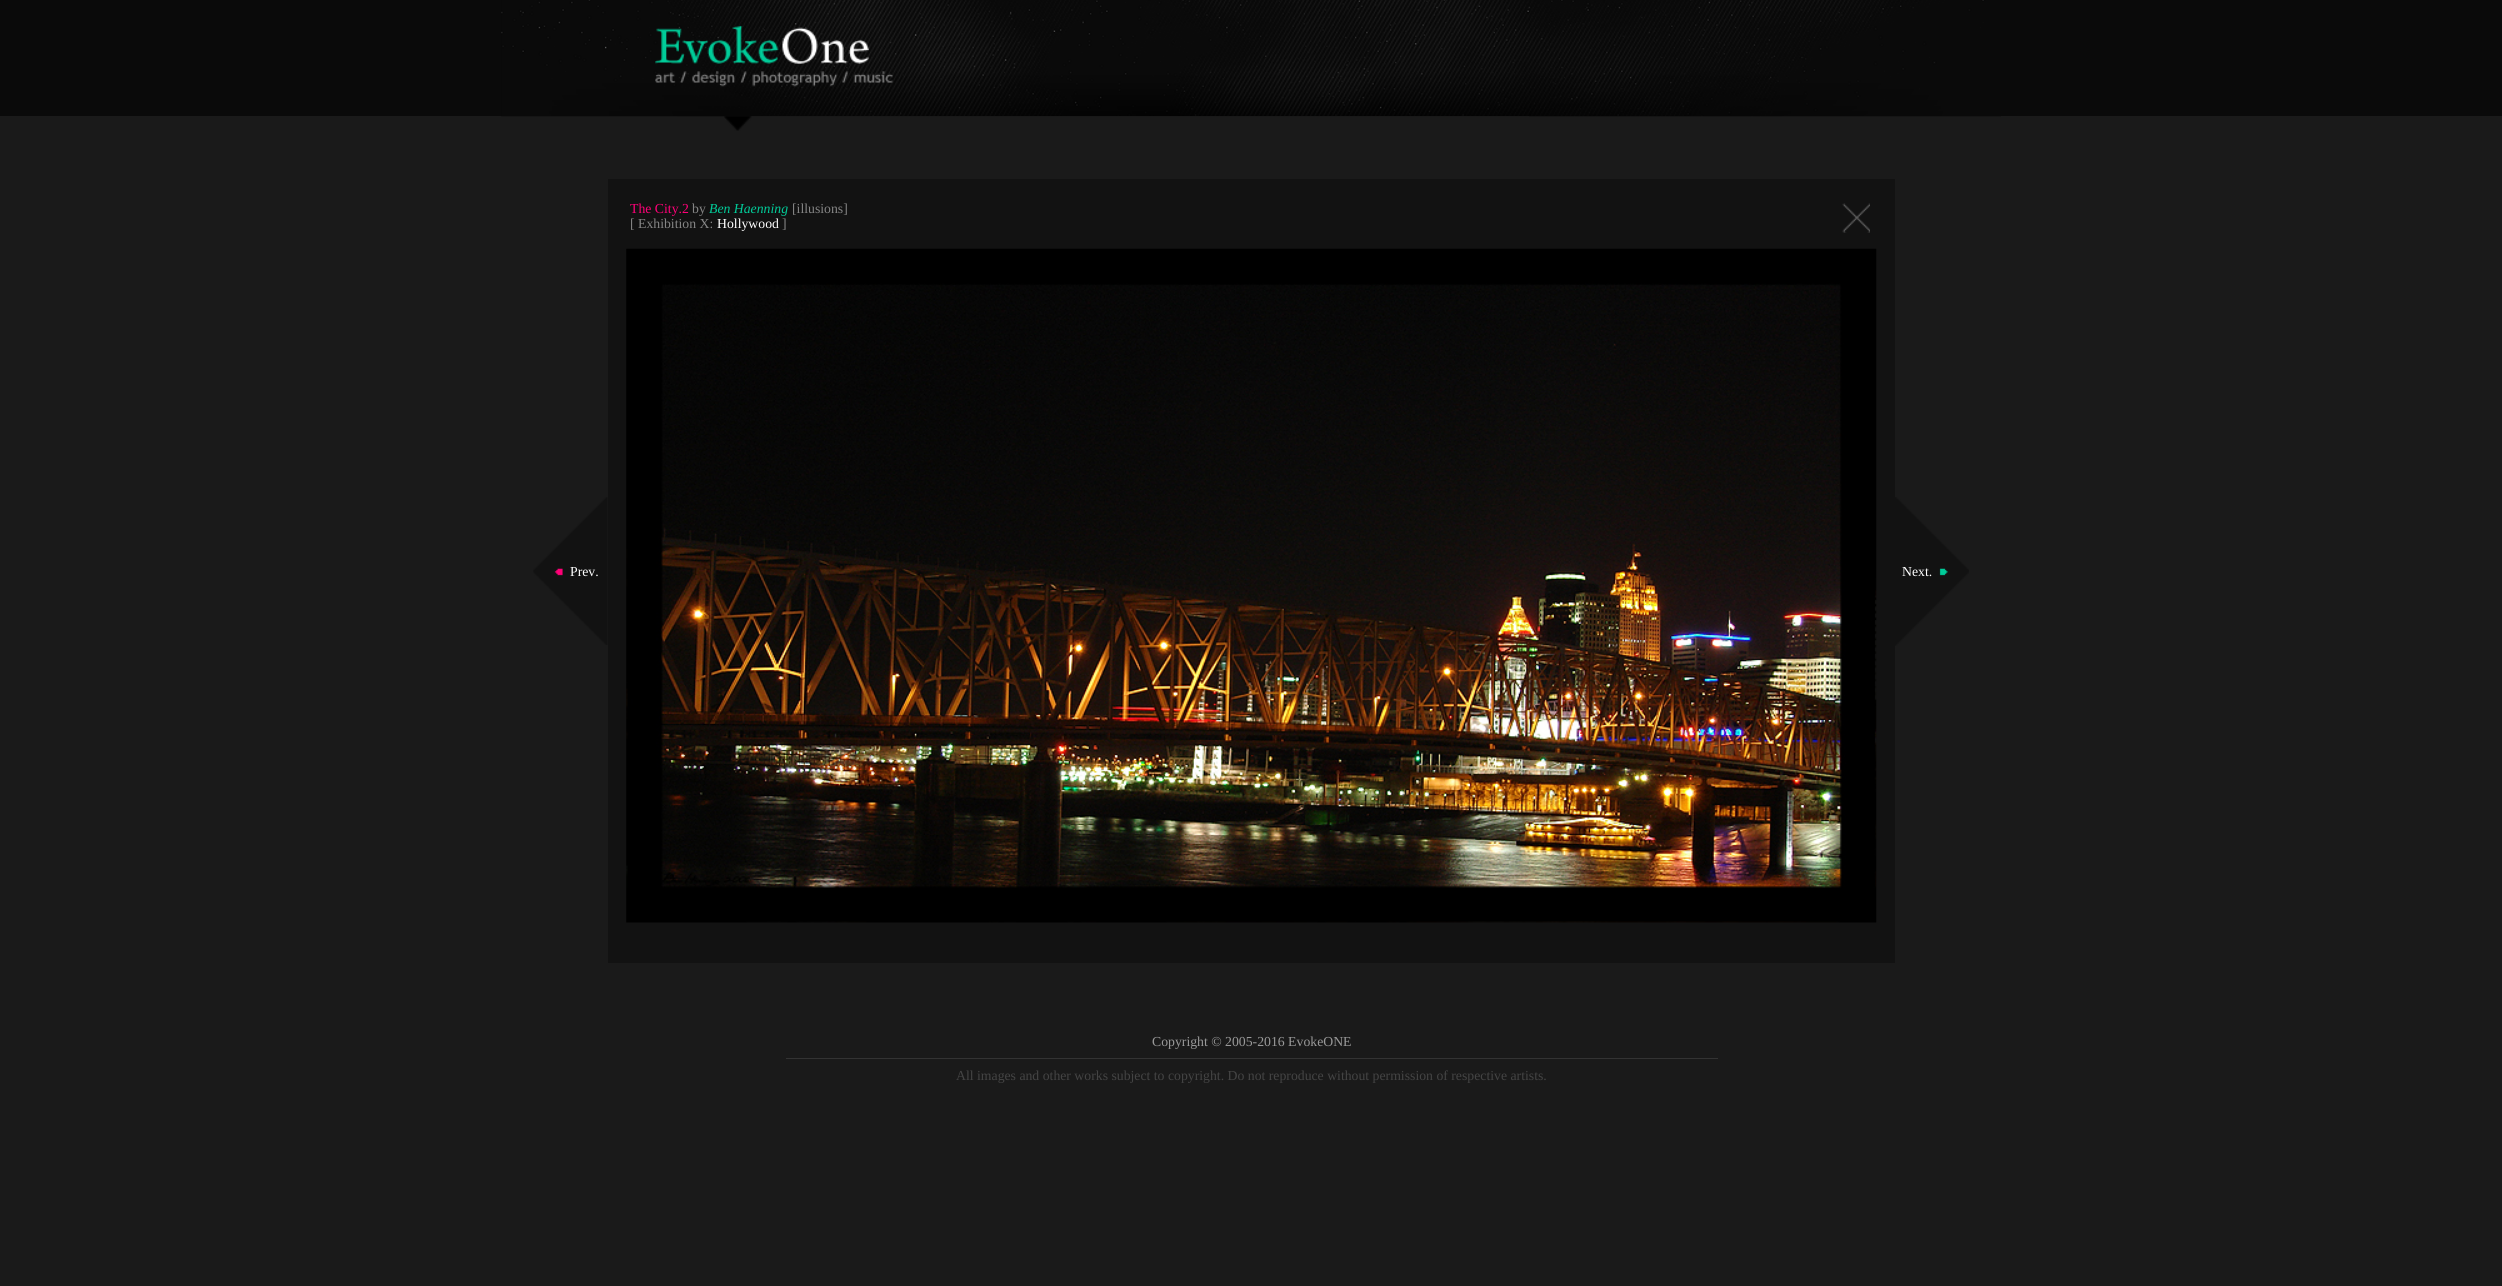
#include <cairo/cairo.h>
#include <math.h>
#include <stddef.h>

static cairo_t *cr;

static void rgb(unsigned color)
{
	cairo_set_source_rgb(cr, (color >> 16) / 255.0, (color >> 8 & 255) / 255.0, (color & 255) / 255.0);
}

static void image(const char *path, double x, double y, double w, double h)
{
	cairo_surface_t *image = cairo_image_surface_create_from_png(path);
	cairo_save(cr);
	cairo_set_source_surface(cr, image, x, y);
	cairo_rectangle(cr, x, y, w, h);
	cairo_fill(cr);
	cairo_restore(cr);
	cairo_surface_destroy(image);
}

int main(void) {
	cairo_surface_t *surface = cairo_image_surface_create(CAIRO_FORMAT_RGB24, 2502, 1286);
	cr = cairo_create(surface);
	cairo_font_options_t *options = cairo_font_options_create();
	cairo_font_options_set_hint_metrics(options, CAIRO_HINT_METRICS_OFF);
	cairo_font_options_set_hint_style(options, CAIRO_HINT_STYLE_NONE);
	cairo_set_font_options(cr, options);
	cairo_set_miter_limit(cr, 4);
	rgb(0x1a1a1a);
	cairo_paint(cr);
	rgb(0x0a0a0a);
	cairo_rectangle(cr, 0, 0, 2502, 116);
	cairo_fill(cr);
	image("img/1.png", 501, 0, 1500, 117);
	image("img/2.png", 655, 25, 238, 62);
	image("img/3.png", 724, 116, 805, 15);
	rgb(0x121212);
	cairo_rectangle(cr, 608, 179, 1287, 784);
	cairo_fill(cr);
	image("img/4.png", 1842, 203, 28, 30);
	image("img/5.png", 533, 497, 75, 148);
	image("img/6.png", 626, 248, 1251, 675);
	image("img/7.png", 1895, 497, 74, 149);
	rgb(0x333333);
	cairo_rectangle(cr, 786, 1058, 932, 1);
	cairo_fill(cr);
	cairo_select_font_face(cr, "Liberation Serif", CAIRO_FONT_SLANT_NORMAL, CAIRO_FONT_WEIGHT_NORMAL);
	cairo_set_font_size(cr, 13.75);
	rgb(0xff0077);
	cairo_move_to(cr, 630, 213);
	cairo_show_text(cr, "The City.2");
	rgb(0x858585);
	cairo_move_to(cr, 692, 213);
	cairo_show_text(cr, "by");
	cairo_select_font_face(cr, "Liberation Serif", CAIRO_FONT_SLANT_ITALIC, CAIRO_FONT_WEIGHT_NORMAL);
	rgb(0x00cc99);
	cairo_move_to(cr, 709, 213);
	cairo_show_text(cr, "Ben Haenning");
	cairo_select_font_face(cr, "Liberation Serif", CAIRO_FONT_SLANT_NORMAL, CAIRO_FONT_WEIGHT_NORMAL);
	rgb(0x858585);
	cairo_move_to(cr, 792, 213);
	cairo_show_text(cr, "[illusions]");
	cairo_move_to(cr, 630, 228);
	cairo_show_text(cr, "[ Exhibition X:");
	rgb(0xffffff);
	cairo_move_to(cr, 717, 228);
	cairo_show_text(cr, "Hollywood");
	rgb(0x858585);
	cairo_move_to(cr, 782, 228);
	cairo_show_text(cr, "]");
	rgb(0xffffff);
	cairo_move_to(cr, 570, 576);
	cairo_show_text(cr, "Prev.");
	cairo_move_to(cr, 1902, 576);
	cairo_show_text(cr, "Next.");
	rgb(0x999999);
	cairo_move_to(cr, 1152, 1046);
	cairo_show_text(cr, "Copyright © 2005-2016 EvokeONE");
	rgb(0x444444);
	cairo_move_to(cr, 956, 1080);
	cairo_show_text(cr, "All images and other works subject to copyright. Do not reproduce without permission of respective artists.");
	cairo_surface_write_to_png(surface, "page.png");
	cairo_font_options_destroy(options);
	cairo_destroy(cr);
	cairo_surface_destroy(surface);
	return 0;
}
